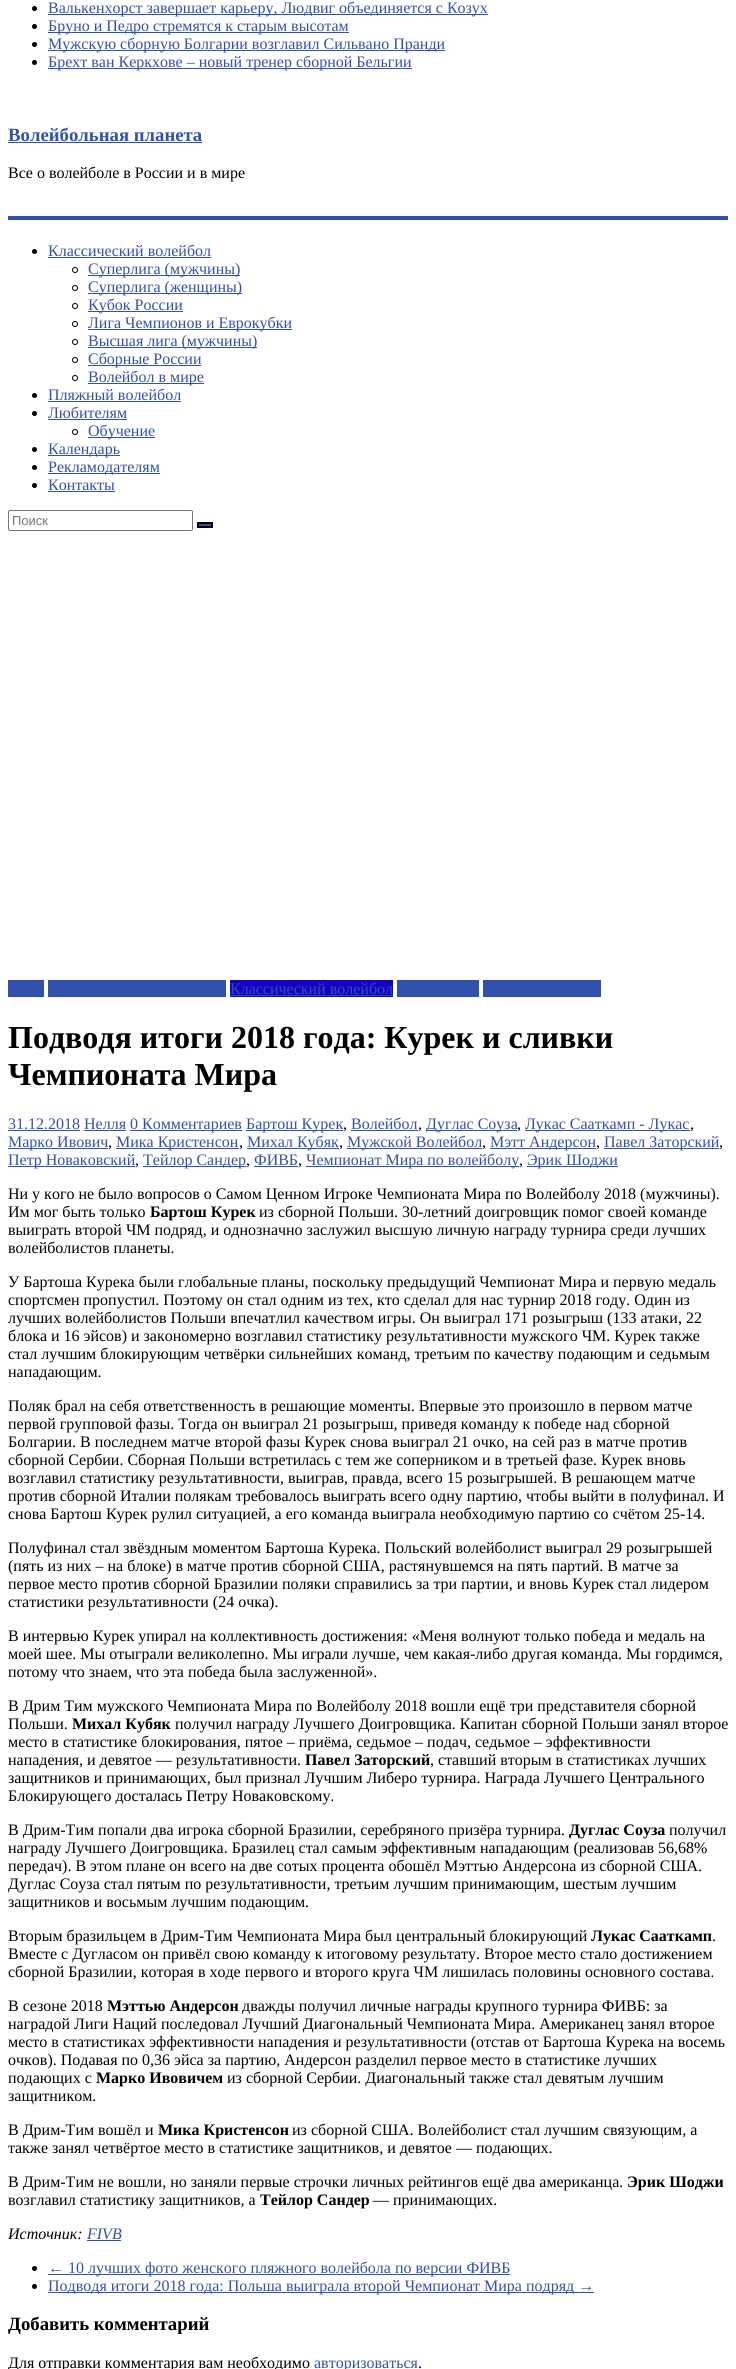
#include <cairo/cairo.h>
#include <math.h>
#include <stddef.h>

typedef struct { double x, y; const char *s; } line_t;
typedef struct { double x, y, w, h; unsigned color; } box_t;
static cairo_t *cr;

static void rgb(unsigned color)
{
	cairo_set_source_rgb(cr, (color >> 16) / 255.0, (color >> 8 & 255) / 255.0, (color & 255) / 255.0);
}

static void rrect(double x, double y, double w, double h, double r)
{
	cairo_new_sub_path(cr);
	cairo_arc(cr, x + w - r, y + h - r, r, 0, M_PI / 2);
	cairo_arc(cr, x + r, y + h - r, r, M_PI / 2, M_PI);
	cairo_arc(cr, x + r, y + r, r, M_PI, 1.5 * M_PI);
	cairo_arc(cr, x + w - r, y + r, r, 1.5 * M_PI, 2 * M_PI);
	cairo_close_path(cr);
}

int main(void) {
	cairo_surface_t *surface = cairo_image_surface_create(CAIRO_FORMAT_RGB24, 736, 2369);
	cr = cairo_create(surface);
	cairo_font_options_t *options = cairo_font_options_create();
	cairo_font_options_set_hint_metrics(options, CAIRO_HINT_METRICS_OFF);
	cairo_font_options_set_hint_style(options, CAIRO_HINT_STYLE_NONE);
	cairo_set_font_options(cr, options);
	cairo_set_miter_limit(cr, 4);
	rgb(0xffffff);
	cairo_paint(cr);
	rgb(0x000000);
	cairo_arc(cr, 34.5, 8.5, 2.5, 0, 2 * M_PI);
	cairo_fill(cr);
	rgb(0x3251ad);
	cairo_rectangle(cr, 48, 14, 440, 1);
	cairo_fill(cr);
	rgb(0x000000);
	cairo_arc(cr, 34.5, 26.5, 2.5, 0, 2 * M_PI);
	cairo_fill(cr);
	rgb(0x3251ad);
	cairo_rectangle(cr, 48, 32, 301, 1);
	cairo_fill(cr);
	rgb(0x000000);
	cairo_arc(cr, 34.5, 44.5, 2.5, 0, 2 * M_PI);
	cairo_fill(cr);
	rgb(0x3251ad);
	cairo_rectangle(cr, 48, 50, 397, 1);
	cairo_fill(cr);
	rgb(0x000000);
	cairo_arc(cr, 34.5, 62.5, 2.5, 0, 2 * M_PI);
	cairo_fill(cr);
	{
		static const box_t items[] = {
			{48, 68, 364, 1, 0x3251ad},
			{8, 142, 194, 1, 0x3251ad},
			{8, 216, 720, 4, 0x3251ad},
		};
		for (size_t i = 0; i < sizeof items / sizeof *items; i++) {
			rgb(items[i].color);
			cairo_rectangle(cr, items[i].x, items[i].y, items[i].w, items[i].h);
			cairo_fill(cr);
		}
	}
	rgb(0x000000);
	cairo_arc(cr, 34.5, 251.5, 2.5, 0, 2 * M_PI);
	cairo_fill(cr);
	rgb(0x3251ad);
	cairo_rectangle(cr, 48, 257, 163, 1);
	cairo_fill(cr);
	cairo_arc(cr, 75, 270, 2.5, 0, 2 * M_PI);
	rgb(0x000000);
	cairo_set_line_width(cr, 1);
	cairo_stroke(cr);
	rgb(0x3251ad);
	cairo_rectangle(cr, 88, 275, 152, 1);
	cairo_fill(cr);
	cairo_arc(cr, 75, 288, 2.5, 0, 2 * M_PI);
	rgb(0x000000);
	cairo_stroke(cr);
	rgb(0x3251ad);
	cairo_rectangle(cr, 88, 293, 154, 1);
	cairo_fill(cr);
	cairo_arc(cr, 75, 306, 2.5, 0, 2 * M_PI);
	rgb(0x000000);
	cairo_stroke(cr);
	rgb(0x3251ad);
	cairo_rectangle(cr, 88, 311, 95, 1);
	cairo_fill(cr);
	cairo_arc(cr, 75, 324, 2.5, 0, 2 * M_PI);
	rgb(0x000000);
	cairo_stroke(cr);
	rgb(0x3251ad);
	cairo_rectangle(cr, 88, 329, 204, 1);
	cairo_fill(cr);
	cairo_arc(cr, 75, 342, 2.5, 0, 2 * M_PI);
	rgb(0x000000);
	cairo_stroke(cr);
	rgb(0x3251ad);
	cairo_rectangle(cr, 88, 347, 169, 1);
	cairo_fill(cr);
	cairo_arc(cr, 75, 360, 2.5, 0, 2 * M_PI);
	rgb(0x000000);
	cairo_stroke(cr);
	rgb(0x3251ad);
	cairo_rectangle(cr, 88, 365, 113, 1);
	cairo_fill(cr);
	cairo_arc(cr, 75, 378, 2.5, 0, 2 * M_PI);
	rgb(0x000000);
	cairo_stroke(cr);
	rgb(0x3251ad);
	cairo_rectangle(cr, 88, 383, 116, 1);
	cairo_fill(cr);
	rgb(0x000000);
	cairo_arc(cr, 34.5, 395.5, 2.5, 0, 2 * M_PI);
	cairo_fill(cr);
	rgb(0x3251ad);
	cairo_rectangle(cr, 48, 401, 133, 1);
	cairo_fill(cr);
	rgb(0x000000);
	cairo_arc(cr, 34.5, 413.5, 2.5, 0, 2 * M_PI);
	cairo_fill(cr);
	rgb(0x3251ad);
	cairo_rectangle(cr, 48, 419, 79, 1);
	cairo_fill(cr);
	cairo_arc(cr, 75, 432, 2.5, 0, 2 * M_PI);
	rgb(0x000000);
	cairo_stroke(cr);
	rgb(0x3251ad);
	cairo_rectangle(cr, 88, 437, 67, 1);
	cairo_fill(cr);
	rgb(0x000000);
	cairo_arc(cr, 34.5, 449.5, 2.5, 0, 2 * M_PI);
	cairo_fill(cr);
	rgb(0x3251ad);
	cairo_rectangle(cr, 48, 455, 72, 1);
	cairo_fill(cr);
	rgb(0x000000);
	cairo_arc(cr, 34.5, 467.5, 2.5, 0, 2 * M_PI);
	cairo_fill(cr);
	rgb(0x3251ad);
	cairo_rectangle(cr, 48, 473, 112, 1);
	cairo_fill(cr);
	rgb(0x000000);
	cairo_arc(cr, 34.5, 485.5, 2.5, 0, 2 * M_PI);
	cairo_fill(cr);
	rgb(0x3251ad);
	cairo_rectangle(cr, 48, 491, 67, 1);
	cairo_fill(cr);
	rrect(8.5, 510.5, 184, 20, 1.5);
	rgb(0x767676);
	cairo_stroke(cr);
	rgb(0x3251ad);
	cairo_rectangle(cr, 198, 523, 14, 4);
	cairo_fill_preserve(cr);
	rgb(0x000000);
	cairo_set_line_width(cr, 2);
	cairo_stroke(cr);
	{
		static const box_t items[] = {
			{8, 980, 36, 17, 0x3251ad},
			{48, 980, 178, 17, 0x3251ad},
			{230, 980, 163, 17, 0x1300c6},
			{230, 995, 163, 1, 0x3251ad},
			{397, 980, 82, 17, 0x3251ad},
			{483, 980, 118, 17, 0x3251ad},
			{8, 1130, 72, 1, 0x3251ad},
			{130, 1130, 112, 1, 0x3251ad},
			{246, 1130, 97, 1, 0x3251ad},
			{351, 1130, 67, 1, 0x3251ad},
			{426, 1130, 91, 1, 0x3251ad},
			{525, 1130, 165, 1, 0x3251ad},
			{84, 1130, 42, 1, 0x3251ad},
			{8, 1148, 100, 1, 0x3251ad},
			{116, 1148, 123, 1, 0x3251ad},
			{247, 1148, 92, 1, 0x3251ad},
			{347, 1148, 135, 1, 0x3251ad},
			{490, 1148, 106, 1, 0x3251ad},
			{604, 1148, 115, 1, 0x3251ad},
			{8, 1166, 127, 1, 0x3251ad},
			{143, 1166, 103, 1, 0x3251ad},
			{254, 1166, 44, 1, 0x3251ad},
			{306, 1166, 213, 1, 0x3251ad},
			{527, 1166, 91, 1, 0x3251ad},
			{87, 2240, 34, 1, 0x3251ad},
		};
		for (size_t i = 0; i < sizeof items / sizeof *items; i++) {
			rgb(items[i].color);
			cairo_rectangle(cr, items[i].x, items[i].y, items[i].w, items[i].h);
			cairo_fill(cr);
		}
	}
	rgb(0x000000);
	cairo_arc(cr, 34.5, 2268.5, 2.5, 0, 2 * M_PI);
	cairo_fill(cr);
	rgb(0x3251ad);
	cairo_rectangle(cr, 48, 2274, 462, 1);
	cairo_fill(cr);
	rgb(0x000000);
	cairo_arc(cr, 34.5, 2286.5, 2.5, 0, 2 * M_PI);
	cairo_fill(cr);
	rgb(0x3251ad);
	cairo_rectangle(cr, 48, 2292, 546, 1);
	cairo_fill(cr);
	cairo_select_font_face(cr, "Liberation Serif", CAIRO_FONT_SLANT_NORMAL, CAIRO_FONT_WEIGHT_NORMAL);
	cairo_set_font_size(cr, 16);
	{
		static const line_t items[] = {
			{48, 13, "Валькенхорст завершает карьеру, Людвиг объединяется с Козух"},
			{48, 31, "Бруно и Педро стремятся к старым высотам"},
			{48, 49, "Мужскую сборную Болгарии возглавил Сильвано Пранди"},
			{48, 67, "Брехт ван Керкхове – новый тренер сборной Бельгии"},
		};
		for (size_t i = 0; i < sizeof items / sizeof *items; i++) {
			cairo_move_to(cr, items[i].x, items[i].y);
			cairo_show_text(cr, items[i].s);
		}
	}
	cairo_select_font_face(cr, "Liberation Serif", CAIRO_FONT_SLANT_NORMAL, CAIRO_FONT_WEIGHT_BOLD);
	cairo_set_font_size(cr, 18.75);
	cairo_move_to(cr, 8, 141);
	cairo_show_text(cr, "Волейбольная планета");
	cairo_select_font_face(cr, "Liberation Serif", CAIRO_FONT_SLANT_NORMAL, CAIRO_FONT_WEIGHT_NORMAL);
	cairo_set_font_size(cr, 16);
	rgb(0x000000);
	cairo_move_to(cr, 8, 178);
	cairo_show_text(cr, "Все о волейболе в России и в мире");
	rgb(0x3251ad);
	{
		static const line_t items[] = {
			{48, 256, "Классический волейбол"},
			{88, 274, "Суперлига (мужчины)"},
			{88, 292, "Суперлига (женщины)"},
			{88, 310, "Кубок России"},
			{88, 328, "Лига Чемпионов и Еврокубки"},
			{88, 346, "Высшая лига (мужчины)"},
			{88, 364, "Сборные России"},
			{88, 382, "Волейбол в мире"},
			{48, 400, "Пляжный волейбол"},
			{48, 418, "Любителям"},
			{88, 436, "Обучение"},
			{48, 454, "Календарь"},
			{48, 472, "Рекламодателям"},
			{48, 490, "Контакты"},
		};
		for (size_t i = 0; i < sizeof items / sizeof *items; i++) {
			cairo_move_to(cr, items[i].x, items[i].y);
			cairo_show_text(cr, items[i].s);
		}
	}
	cairo_select_font_face(cr, "Liberation Sans", CAIRO_FONT_SLANT_NORMAL, CAIRO_FONT_WEIGHT_NORMAL);
	cairo_set_font_size(cr, 13);
	rgb(0x757575);
	cairo_move_to(cr, 12, 525);
	cairo_show_text(cr, "Поиск");
	cairo_select_font_face(cr, "Liberation Serif", CAIRO_FONT_SLANT_NORMAL, CAIRO_FONT_WEIGHT_NORMAL);
	cairo_set_font_size(cr, 16);
	rgb(0x3251ad);
	cairo_move_to(cr, 230, 994);
	cairo_show_text(cr, "Классический волейбол");
	cairo_select_font_face(cr, "Liberation Serif", CAIRO_FONT_SLANT_NORMAL, CAIRO_FONT_WEIGHT_BOLD);
	cairo_set_font_size(cr, 32);
	rgb(0x000000);
	cairo_move_to(cr, 8, 1048);
	cairo_show_text(cr, "Подводя итоги 2018 года: Курек и сливки");
	cairo_move_to(cr, 8, 1085);
	cairo_show_text(cr, "Чемпионата Мира");
	cairo_select_font_face(cr, "Liberation Serif", CAIRO_FONT_SLANT_NORMAL, CAIRO_FONT_WEIGHT_NORMAL);
	cairo_set_font_size(cr, 16);
	rgb(0x3251ad);
	{
		static const line_t items[] = {
			{8, 1129, "31.12.2018 Нелля"},
			{130, 1129, "0 Комментариев"},
			{246, 1129, "Бартош Курек"},
		};
		for (size_t i = 0; i < sizeof items / sizeof *items; i++) {
			cairo_move_to(cr, items[i].x, items[i].y);
			cairo_show_text(cr, items[i].s);
		}
	}
	rgb(0x000000);
	cairo_move_to(cr, 343, 1129);
	cairo_show_text(cr, ",");
	rgb(0x3251ad);
	cairo_move_to(cr, 351, 1129);
	cairo_show_text(cr, "Волейбол");
	rgb(0x000000);
	cairo_move_to(cr, 418, 1129);
	cairo_show_text(cr, ",");
	rgb(0x3251ad);
	cairo_move_to(cr, 426, 1129);
	cairo_show_text(cr, "Дуглас Соуза");
	rgb(0x000000);
	cairo_move_to(cr, 517, 1129);
	cairo_show_text(cr, ",");
	rgb(0x3251ad);
	cairo_move_to(cr, 525, 1129);
	cairo_show_text(cr, "Лукас Сааткамп - Лукас");
	rgb(0x000000);
	cairo_move_to(cr, 690, 1129);
	cairo_show_text(cr, ",");
	rgb(0x3251ad);
	cairo_move_to(cr, 8, 1147);
	cairo_show_text(cr, "Марко Ивович");
	rgb(0x000000);
	cairo_move_to(cr, 108, 1147);
	cairo_show_text(cr, ",");
	rgb(0x3251ad);
	cairo_move_to(cr, 116, 1147);
	cairo_show_text(cr, "Мика Кристенсон");
	rgb(0x000000);
	cairo_move_to(cr, 239, 1147);
	cairo_show_text(cr, ",");
	rgb(0x3251ad);
	cairo_move_to(cr, 247, 1147);
	cairo_show_text(cr, "Михал Кубяк");
	rgb(0x000000);
	cairo_move_to(cr, 339, 1147);
	cairo_show_text(cr, ",");
	rgb(0x3251ad);
	cairo_move_to(cr, 347, 1147);
	cairo_show_text(cr, "Мужской Волейбол");
	rgb(0x000000);
	cairo_move_to(cr, 482, 1147);
	cairo_show_text(cr, ",");
	rgb(0x3251ad);
	cairo_move_to(cr, 490, 1147);
	cairo_show_text(cr, "Мэтт Андерсон");
	rgb(0x000000);
	cairo_move_to(cr, 596, 1147);
	cairo_show_text(cr, ",");
	rgb(0x3251ad);
	cairo_move_to(cr, 604, 1147);
	cairo_show_text(cr, "Павел Заторский");
	rgb(0x000000);
	cairo_move_to(cr, 719, 1147);
	cairo_show_text(cr, ",");
	rgb(0x3251ad);
	cairo_move_to(cr, 8, 1165);
	cairo_show_text(cr, "Петр Новаковский");
	rgb(0x000000);
	cairo_move_to(cr, 135, 1165);
	cairo_show_text(cr, ",");
	rgb(0x3251ad);
	cairo_move_to(cr, 143, 1165);
	cairo_show_text(cr, "Тейлор Сандер");
	rgb(0x000000);
	cairo_move_to(cr, 246, 1165);
	cairo_show_text(cr, ",");
	rgb(0x3251ad);
	cairo_move_to(cr, 254, 1165);
	cairo_show_text(cr, "ФИВБ");
	rgb(0x000000);
	cairo_move_to(cr, 298, 1165);
	cairo_show_text(cr, ",");
	rgb(0x3251ad);
	cairo_move_to(cr, 306, 1165);
	cairo_show_text(cr, "Чемпионат Мира по волейболу");
	rgb(0x000000);
	cairo_move_to(cr, 519, 1165);
	cairo_show_text(cr, ",");
	rgb(0x3251ad);
	cairo_move_to(cr, 527, 1165);
	cairo_show_text(cr, "Эрик Шоджи");
	rgb(0x000000);
	cairo_move_to(cr, 8, 1199);
	cairo_show_text(cr, "Ни у кого не было вопросов о Самом Ценном Игроке Чемпионата Мира по Волейболу 2018 (мужчины).");
	cairo_move_to(cr, 8, 1217);
	cairo_show_text(cr, "Им мог быть только");
	cairo_select_font_face(cr, "Liberation Serif", CAIRO_FONT_SLANT_NORMAL, CAIRO_FONT_WEIGHT_BOLD);
	cairo_move_to(cr, 150, 1217);
	cairo_show_text(cr, "Бартош Курек");
	cairo_select_font_face(cr, "Liberation Serif", CAIRO_FONT_SLANT_NORMAL, CAIRO_FONT_WEIGHT_NORMAL);
	{
		static const line_t items[] = {
			{259, 1217, "из сборной Польши. 30-летний доигровщик помог своей команде"},
			{8, 1235, "выиграть второй ЧМ подряд, и однозначно заслужил высшую личную награду турнира среди лучших"},
			{8, 1253, "волейболистов планеты."},
			{8, 1287, "У Бартоша Курека были глобальные планы, поскольку предыдущий Чемпионат Мира и первую медаль"},
			{8, 1305, "спортсмен пропустил. Поэтому он стал одним из тех, кто сделал для нас турнир 2018 году. Один из"},
			{8, 1323, "лучших волейболистов Польши впечатлил качеством игры. Он выиграл 171 розыгрыш (133 атаки, 22"},
			{8, 1341, "блока и 16 эйсов) и закономерно возглавил статистику результативности мужского ЧМ. Курек также"},
			{8, 1359, "стал лучшим блокирующим четвёрки сильнейших команд, третьим по качеству подающим и седьмым"},
			{8, 1377, "нападающим."},
			{8, 1411, "Поляк брал на себя ответственность в решающие моменты. Впервые это произошло в первом матче"},
			{8, 1429, "первой групповой фазы. Тогда он выиграл 21 розыгрыш, приведя команду к победе над сборной"},
			{8, 1447, "Болгарии. В последнем матче второй фазы Курек снова выиграл 21 очко, на сей раз в матче против"},
			{8, 1465, "сборной Сербии. Сборная Польши встретилась с тем же соперником и в третьей фазе. Курек вновь"},
			{8, 1483, "возглавил статистику результативности, выиграв, правда, всего 15 розыгрышей. В решающем матче"},
			{8, 1501, "против сборной Италии полякам требовалось выиграть всего одну партию, чтобы выйти в полуфинал. И"},
			{8, 1519, "снова Бартош Курек рулил ситуацией, а его команда выиграла необходимую партию со счётом 25-14."},
			{8, 1553, "Полуфинал стал звёздным моментом Бартоша Курека. Польский волейболист выиграл 29 розыгрышей"},
			{8, 1571, "(пять из них – на блоке) в матче против сборной США, растянувшемся на пять партий. В матче за"},
			{8, 1589, "первое место против сборной Бразилии поляки справились за три партии, и вновь Курек стал лидером"},
			{8, 1607, "статистики результативности (24 очка)."},
			{8, 1641, "В интервью Курек упирал на коллективность достижения: «Меня волнуют только победа и медаль на"},
			{8, 1659, "моей шее. Мы отыграли великолепно. Мы играли лучше, чем какая-либо другая команда. Мы гордимся,"},
			{8, 1677, "потому что знаем, что эта победа была заслуженной»."},
			{8, 1711, "В Дрим Тим мужского Чемпионата Мира по Волейболу 2018 вошли ещё три представителя сборной"},
			{8, 1729, "Польши."},
		};
		for (size_t i = 0; i < sizeof items / sizeof *items; i++) {
			cairo_move_to(cr, items[i].x, items[i].y);
			cairo_show_text(cr, items[i].s);
		}
	}
	cairo_select_font_face(cr, "Liberation Serif", CAIRO_FONT_SLANT_NORMAL, CAIRO_FONT_WEIGHT_BOLD);
	cairo_move_to(cr, 72, 1729);
	cairo_show_text(cr, "Михал Кубяк");
	cairo_select_font_face(cr, "Liberation Serif", CAIRO_FONT_SLANT_NORMAL, CAIRO_FONT_WEIGHT_NORMAL);
	{
		static const line_t items[] = {
			{175, 1729, "получил награду Лучшего Доигровщика. Капитан сборной Польши занял второе"},
			{8, 1747, "место в статистике блокирования, пятое – приёма, седьмое – подач, седьмое – эффективности"},
			{8, 1765, "нападения, и девятое — результативности."},
		};
		for (size_t i = 0; i < sizeof items / sizeof *items; i++) {
			cairo_move_to(cr, items[i].x, items[i].y);
			cairo_show_text(cr, items[i].s);
		}
	}
	cairo_select_font_face(cr, "Liberation Serif", CAIRO_FONT_SLANT_NORMAL, CAIRO_FONT_WEIGHT_BOLD);
	cairo_move_to(cr, 305, 1765);
	cairo_show_text(cr, "Павел Заторский");
	cairo_select_font_face(cr, "Liberation Serif", CAIRO_FONT_SLANT_NORMAL, CAIRO_FONT_WEIGHT_NORMAL);
	{
		static const line_t items[] = {
			{430, 1765, ", ставший вторым в статистиках лучших"},
			{8, 1783, "защитников и принимающих, был признал Лучшим Либеро турнира. Награда Лучшего Центрального"},
			{8, 1801, "Блокирующего досталась Петру Новаковскому."},
			{8, 1835, "В Дрим-Тим попали два игрока сборной Бразилии, серебряного призёра турнира."},
		};
		for (size_t i = 0; i < sizeof items / sizeof *items; i++) {
			cairo_move_to(cr, items[i].x, items[i].y);
			cairo_show_text(cr, items[i].s);
		}
	}
	cairo_select_font_face(cr, "Liberation Serif", CAIRO_FONT_SLANT_NORMAL, CAIRO_FONT_WEIGHT_BOLD);
	cairo_move_to(cr, 569, 1835);
	cairo_show_text(cr, "Дуглас Соуза");
	cairo_select_font_face(cr, "Liberation Serif", CAIRO_FONT_SLANT_NORMAL, CAIRO_FONT_WEIGHT_NORMAL);
	{
		static const line_t items[] = {
			{669, 1835, "получил"},
			{8, 1853, "награду Лучшего Доигровщика. Бразилец стал самым эффективным нападающим (реализовав 56,68%"},
			{8, 1871, "передач). В этом плане он всего на две сотых процента обошёл Мэттью Андерсона из сборной США."},
			{8, 1889, "Дуглас Соуза стал пятым по результативности, третьим лучшим принимающим, шестым лучшим"},
			{8, 1907, "защитников и восьмым лучшим подающим."},
			{8, 1941, "Вторым бразильцем в Дрим-Тим Чемпионата Мира был центральный блокирующий"},
		};
		for (size_t i = 0; i < sizeof items / sizeof *items; i++) {
			cairo_move_to(cr, items[i].x, items[i].y);
			cairo_show_text(cr, items[i].s);
		}
	}
	cairo_select_font_face(cr, "Liberation Serif", CAIRO_FONT_SLANT_NORMAL, CAIRO_FONT_WEIGHT_BOLD);
	cairo_move_to(cr, 591, 1941);
	cairo_show_text(cr, "Лукас Сааткамп");
	cairo_select_font_face(cr, "Liberation Serif", CAIRO_FONT_SLANT_NORMAL, CAIRO_FONT_WEIGHT_NORMAL);
	{
		static const line_t items[] = {
			{712, 1941, "."},
			{8, 1959, "Вместе с Дугласом он привёл свою команду к итоговому результату. Второе место стало достижением"},
			{8, 1977, "сборной Бразилии, которая в ходе первого и второго круга ЧМ лишилась половины основного состава."},
			{8, 2011, "В сезоне 2018"},
		};
		for (size_t i = 0; i < sizeof items / sizeof *items; i++) {
			cairo_move_to(cr, items[i].x, items[i].y);
			cairo_show_text(cr, items[i].s);
		}
	}
	cairo_select_font_face(cr, "Liberation Serif", CAIRO_FONT_SLANT_NORMAL, CAIRO_FONT_WEIGHT_BOLD);
	cairo_move_to(cr, 107, 2011);
	cairo_show_text(cr, "Мэттью Андерсон");
	cairo_select_font_face(cr, "Liberation Serif", CAIRO_FONT_SLANT_NORMAL, CAIRO_FONT_WEIGHT_NORMAL);
	{
		static const line_t items[] = {
			{242, 2011, "дважды получил личные награды крупного турнира ФИВБ: за"},
			{8, 2029, "наградой Лиги Наций последовал Лучший Диагональный Чемпионата Мира. Американец занял второе"},
			{8, 2047, "место в статистиках эффективности нападения и результативности (отстав от Бартоша Курека на восемь"},
			{8, 2065, "очков). Подавая по 0,36 эйса за партию, Андерсон разделил первое место в статистике лучших"},
			{8, 2083, "подающих с"},
		};
		for (size_t i = 0; i < sizeof items / sizeof *items; i++) {
			cairo_move_to(cr, items[i].x, items[i].y);
			cairo_show_text(cr, items[i].s);
		}
	}
	cairo_select_font_face(cr, "Liberation Serif", CAIRO_FONT_SLANT_NORMAL, CAIRO_FONT_WEIGHT_BOLD);
	cairo_move_to(cr, 96, 2083);
	cairo_show_text(cr, "Марко Ивовичем");
	cairo_select_font_face(cr, "Liberation Serif", CAIRO_FONT_SLANT_NORMAL, CAIRO_FONT_WEIGHT_NORMAL);
	{
		static const line_t items[] = {
			{227, 2083, "из сборной Сербии. Диагональный также стал девятым лучшим"},
			{8, 2101, "защитником."},
			{8, 2135, "В Дрим-Тим вошёл и"},
		};
		for (size_t i = 0; i < sizeof items / sizeof *items; i++) {
			cairo_move_to(cr, items[i].x, items[i].y);
			cairo_show_text(cr, items[i].s);
		}
	}
	cairo_select_font_face(cr, "Liberation Serif", CAIRO_FONT_SLANT_NORMAL, CAIRO_FONT_WEIGHT_BOLD);
	cairo_move_to(cr, 158, 2135);
	cairo_show_text(cr, "Мика Кристенсон");
	cairo_select_font_face(cr, "Liberation Serif", CAIRO_FONT_SLANT_NORMAL, CAIRO_FONT_WEIGHT_NORMAL);
	{
		static const line_t items[] = {
			{292, 2135, "из сборной США. Волейболист стал лучшим связующим, а"},
			{8, 2153, "также занял четвёртое место в статистике защитников, и девятое — подающих."},
			{8, 2187, "В Дрим-Тим не вошли, но заняли первые строчки личных рейтингов ещё два американца."},
		};
		for (size_t i = 0; i < sizeof items / sizeof *items; i++) {
			cairo_move_to(cr, items[i].x, items[i].y);
			cairo_show_text(cr, items[i].s);
		}
	}
	cairo_select_font_face(cr, "Liberation Serif", CAIRO_FONT_SLANT_NORMAL, CAIRO_FONT_WEIGHT_BOLD);
	cairo_move_to(cr, 627, 2187);
	cairo_show_text(cr, "Эрик Шоджи");
	cairo_select_font_face(cr, "Liberation Serif", CAIRO_FONT_SLANT_NORMAL, CAIRO_FONT_WEIGHT_NORMAL);
	cairo_move_to(cr, 8, 2205);
	cairo_show_text(cr, "возглавил статистику защитников, а");
	cairo_select_font_face(cr, "Liberation Serif", CAIRO_FONT_SLANT_NORMAL, CAIRO_FONT_WEIGHT_BOLD);
	cairo_move_to(cr, 260, 2205);
	cairo_show_text(cr, "Тейлор Сандер");
	cairo_select_font_face(cr, "Liberation Serif", CAIRO_FONT_SLANT_NORMAL, CAIRO_FONT_WEIGHT_NORMAL);
	cairo_move_to(cr, 373, 2205);
	cairo_show_text(cr, "— принимающих.");
	cairo_select_font_face(cr, "Liberation Serif", CAIRO_FONT_SLANT_ITALIC, CAIRO_FONT_WEIGHT_NORMAL);
	cairo_move_to(cr, 8, 2239);
	cairo_show_text(cr, "Источник:");
	rgb(0x3251ad);
	cairo_move_to(cr, 87, 2239);
	cairo_show_text(cr, "FIVB");
	cairo_select_font_face(cr, "Liberation Serif", CAIRO_FONT_SLANT_NORMAL, CAIRO_FONT_WEIGHT_NORMAL);
	cairo_move_to(cr, 48, 2273);
	cairo_show_text(cr, "← 10 лучших фото женского пляжного волейбола по версии ФИВБ");
	cairo_move_to(cr, 48, 2291);
	cairo_show_text(cr, "Подводя итоги 2018 года: Польша выиграла второй Чемпионат Мира подряд →");
	cairo_select_font_face(cr, "Liberation Serif", CAIRO_FONT_SLANT_NORMAL, CAIRO_FONT_WEIGHT_BOLD);
	cairo_set_font_size(cr, 18.75);
	rgb(0x000000);
	cairo_move_to(cr, 8, 2330);
	cairo_show_text(cr, "Добавить комментарий");
	cairo_select_font_face(cr, "Liberation Serif", CAIRO_FONT_SLANT_NORMAL, CAIRO_FONT_WEIGHT_NORMAL);
	cairo_set_font_size(cr, 16);
	cairo_move_to(cr, 8, 2368);
	cairo_show_text(cr, "Для отправки комментария вам необходимо");
	rgb(0x3251ad);
	cairo_move_to(cr, 314, 2368);
	cairo_show_text(cr, "авторизоваться");
	rgb(0x000000);
	cairo_move_to(cr, 418, 2368);
	cairo_show_text(cr, ".");
	cairo_surface_write_to_png(surface, "page.png");
	cairo_font_options_destroy(options);
	cairo_destroy(cr);
	cairo_surface_destroy(surface);
	return 0;
}
